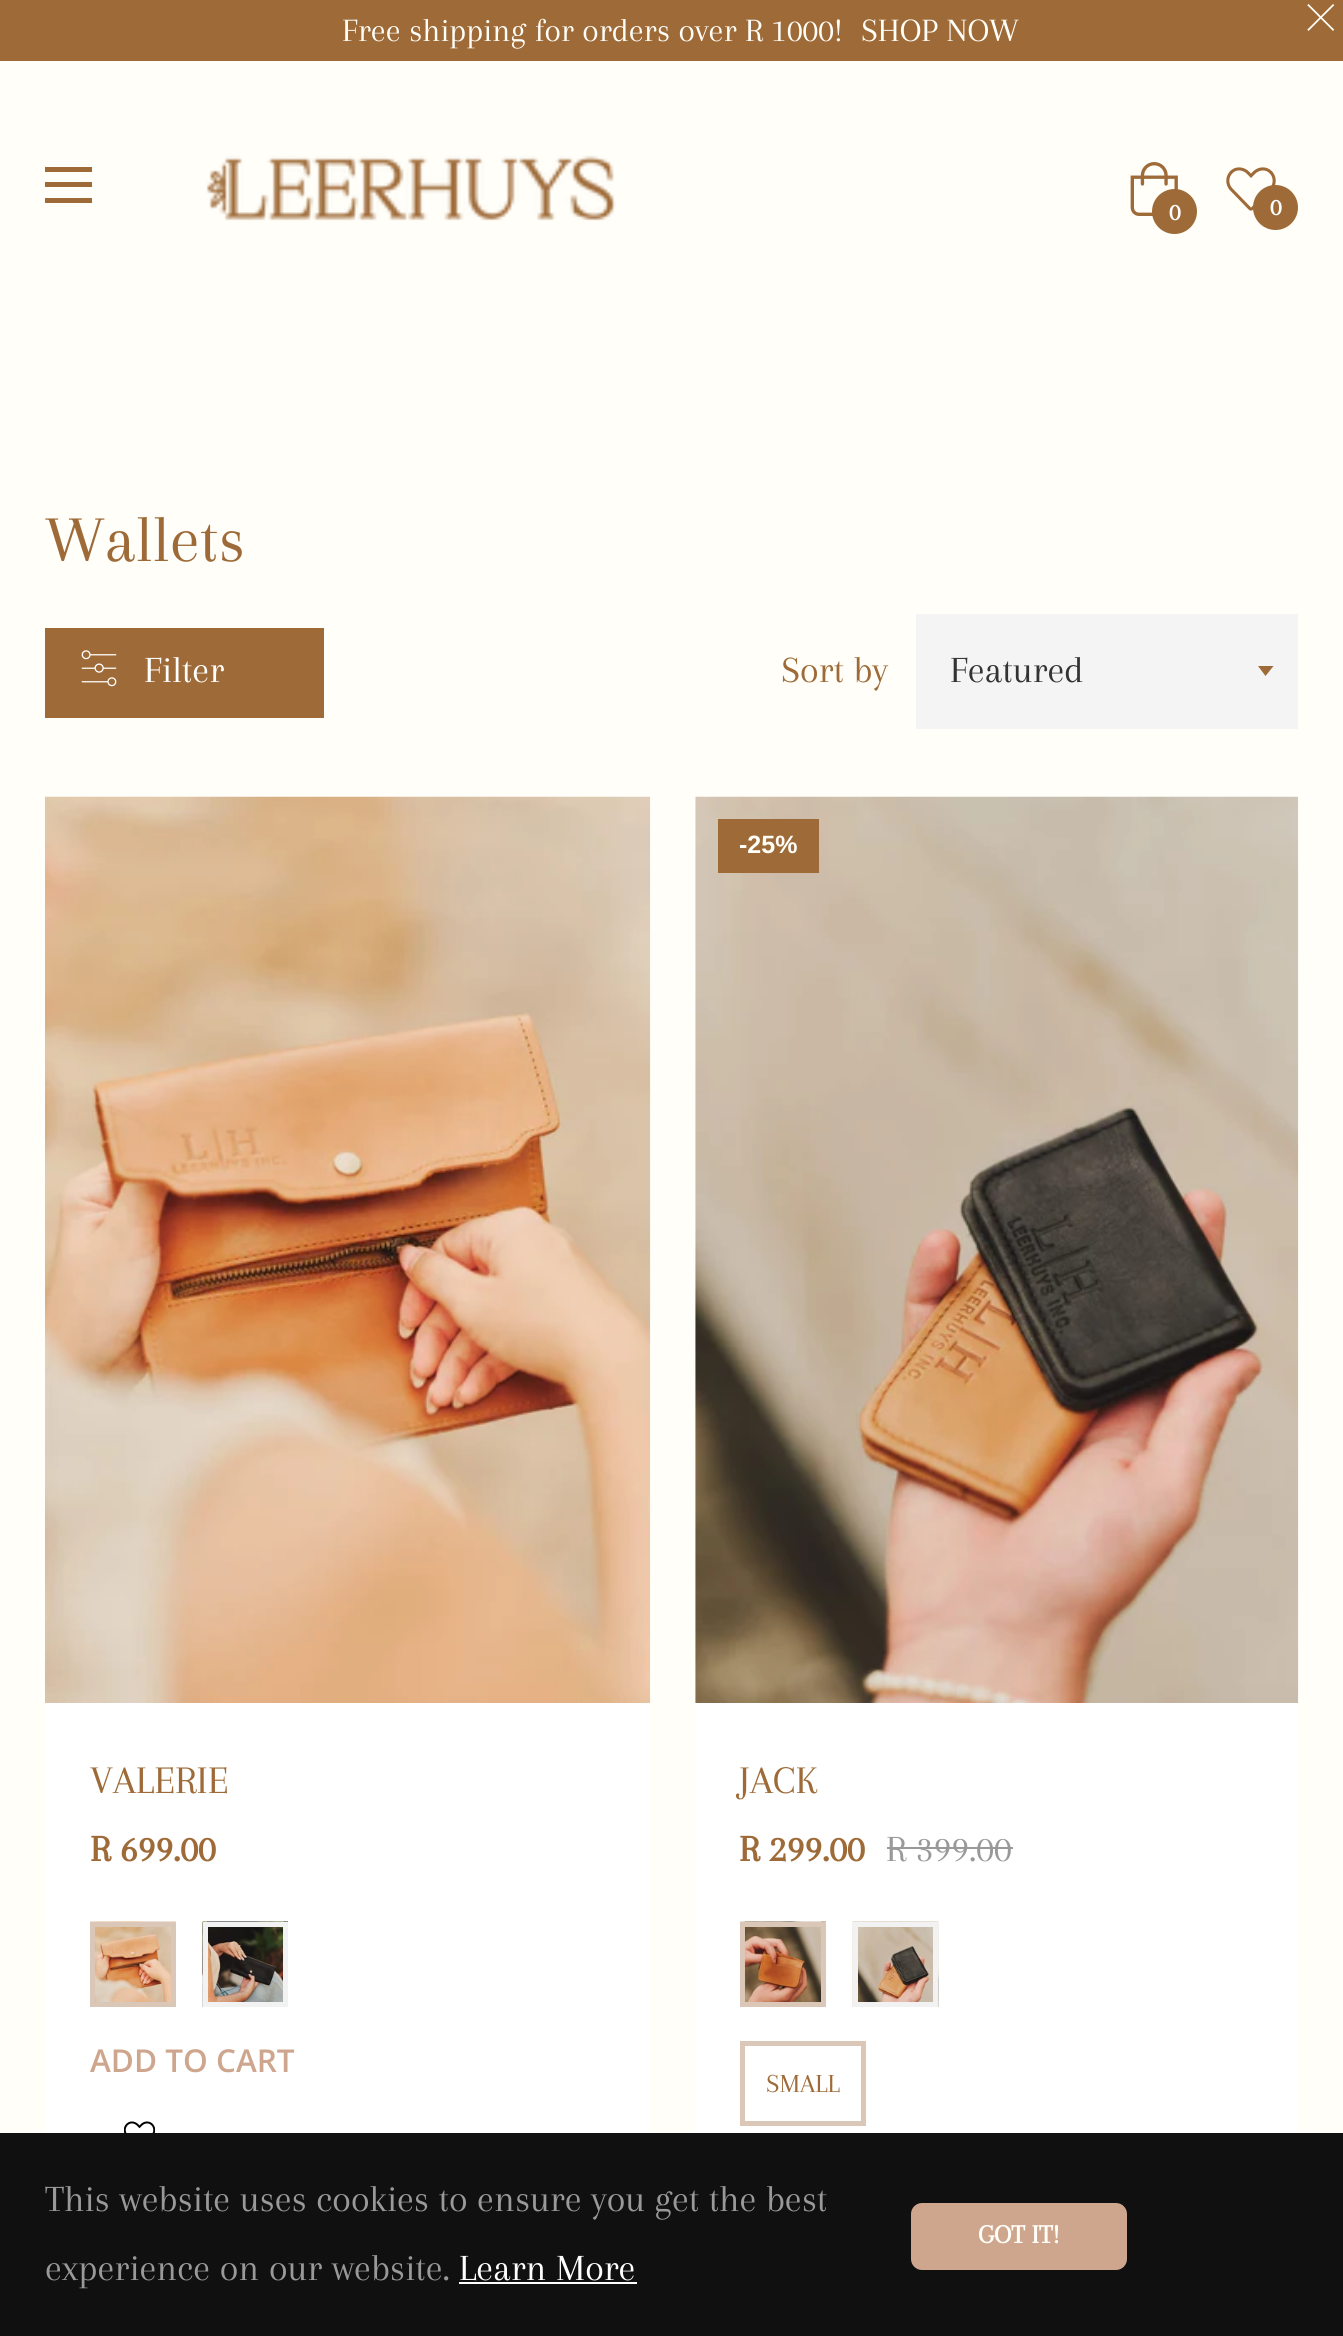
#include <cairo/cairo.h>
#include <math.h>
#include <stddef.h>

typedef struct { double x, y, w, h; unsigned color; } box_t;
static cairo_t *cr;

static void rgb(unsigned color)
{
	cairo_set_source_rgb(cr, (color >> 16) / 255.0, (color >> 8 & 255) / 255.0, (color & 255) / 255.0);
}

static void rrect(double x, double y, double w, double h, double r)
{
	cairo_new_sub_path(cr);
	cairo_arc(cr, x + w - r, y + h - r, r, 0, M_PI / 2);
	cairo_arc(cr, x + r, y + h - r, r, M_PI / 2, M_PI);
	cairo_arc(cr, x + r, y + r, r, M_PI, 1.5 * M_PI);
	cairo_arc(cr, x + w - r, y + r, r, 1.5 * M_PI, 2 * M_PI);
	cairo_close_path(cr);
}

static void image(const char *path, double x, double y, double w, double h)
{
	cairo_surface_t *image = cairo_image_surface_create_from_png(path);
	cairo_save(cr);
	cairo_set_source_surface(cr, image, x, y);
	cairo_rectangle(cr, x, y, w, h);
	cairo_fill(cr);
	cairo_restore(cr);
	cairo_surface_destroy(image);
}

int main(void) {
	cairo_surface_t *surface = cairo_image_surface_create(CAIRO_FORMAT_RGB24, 1343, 2336);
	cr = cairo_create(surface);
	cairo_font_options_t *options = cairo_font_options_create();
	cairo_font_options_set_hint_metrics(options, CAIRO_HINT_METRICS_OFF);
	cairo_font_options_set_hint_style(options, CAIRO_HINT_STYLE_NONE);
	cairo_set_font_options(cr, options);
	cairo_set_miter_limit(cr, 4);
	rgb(0xfffef9);
	cairo_paint(cr);
	rgb(0x9e6b38);
	cairo_rectangle(cr, 0, 0, 1343, 61);
	cairo_fill(cr);
	image("img/1.png", 1307, 4, 28, 27);
	{
		static const box_t items[] = {
			{45, 167, 47, 5, 0x9e6b38},
			{45, 182, 47, 5, 0x9e6b38},
			{45, 198, 47, 5, 0x9e6b38},
		};
		for (size_t i = 0; i < sizeof items / sizeof *items; i++) {
			rgb(items[i].color);
			cairo_rectangle(cr, items[i].x, items[i].y, items[i].w, items[i].h);
			cairo_fill(cr);
		}
	}
	image("img/2.png", 206, 155, 410, 66);
	image("img/3.png", 1130, 162, 48, 54);
	cairo_arc(cr, 1174.5, 211.5, 22.5, 0, 2 * M_PI);
	cairo_fill(cr);
	image("img/4.png", 1226, 167, 50, 44);
	cairo_arc(cr, 1275.5, 207.5, 22.5, 0, 2 * M_PI);
	cairo_fill(cr);
	cairo_rectangle(cr, 45, 628, 279, 90);
	cairo_fill(cr);
	image("img/5.png", 81, 650, 36, 37);
	rgb(0xf4f4f4);
	cairo_rectangle(cr, 916, 614, 382, 115);
	cairo_fill(cr);
	rgb(0x9e6b38);
	cairo_new_path(cr);
	cairo_move_to(cr, 1258, 666);
	cairo_line_to(cr, 1265.5, 676);
	cairo_line_to(cr, 1273.5, 666);
	cairo_close_path(cr);
	cairo_fill(cr);
	image("img/6.png", 45, 796, 606, 907);
	rgb(0xffffff);
	cairo_rectangle(cr, 45, 1703, 605, 430);
	cairo_fill(cr);
	image("img/7.png", 90, 1921, 86, 81);
	cairo_rectangle(cr, 92.5, 1924.5, 81, 80);
	rgb(0xdbc7b7);
	cairo_set_line_width(cr, 5);
	cairo_stroke(cr);
	image("img/8.png", 202, 1921, 86, 86);
	cairo_rectangle(cr, 205.5, 1924.5, 80, 80);
	rgb(0xf2f2f2);
	cairo_stroke(cr);
	image("img/9.png", 124, 2121, 31, 12);
	rgb(0xffffff);
	cairo_rectangle(cr, 695, 797, 1, 906);
	cairo_fill(cr);
	image("img/10.png", 695, 796, 604, 907);
	{
		static const box_t items[] = {
			{718, 819, 101, 54, 0x9e6b38},
			{695, 1703, 603, 430, 0xffffff},
			{887, 1847, 126, 2, 0x999999},
		};
		for (size_t i = 0; i < sizeof items / sizeof *items; i++) {
			rgb(items[i].color);
			cairo_rectangle(cr, items[i].x, items[i].y, items[i].w, items[i].h);
			cairo_fill(cr);
		}
	}
	image("img/11.png", 740, 1921, 86, 81);
	cairo_rectangle(cr, 742.5, 1924.5, 81, 80);
	rgb(0xdbc7b7);
	cairo_stroke(cr);
	image("img/12.png", 852, 1921, 87, 86);
	cairo_rectangle(cr, 855.5, 1924.5, 80, 80);
	rgb(0xf2f2f2);
	cairo_stroke(cr);
	cairo_rectangle(cr, 742.5, 2043.5, 121, 80);
	rgb(0xdbc7b7);
	cairo_stroke(cr);
	rgb(0x101010);
	cairo_rectangle(cr, 0, 2133, 1343, 203);
	cairo_fill(cr);
	rgb(0xffffff);
	cairo_rectangle(cr, 459, 2282, 178, 2);
	cairo_fill(cr);
	rgb(0xcea68d);
	rrect(911, 2203, 216, 67, 11);
	cairo_fill(cr);
	cairo_select_font_face(cr, "Arapey", CAIRO_FONT_SLANT_NORMAL, CAIRO_FONT_WEIGHT_NORMAL);
	cairo_set_font_size(cr, 33.75);
	rgb(0xfffef9);
	cairo_move_to(cr, 342, 41);
	cairo_show_text(cr, "Free shipping for orders over R 1000!");
	cairo_move_to(cr, 861, 41);
	cairo_show_text(cr, "SHOP NOW");
	cairo_select_font_face(cr, "Arapey", CAIRO_FONT_SLANT_NORMAL, CAIRO_FONT_WEIGHT_BOLD);
	cairo_set_font_size(cr, 25);
	rgb(0xffffff);
	cairo_move_to(cr, 1169, 220);
	cairo_show_text(cr, "0");
	cairo_move_to(cr, 1270, 215);
	cairo_show_text(cr, "0");
	cairo_select_font_face(cr, "Arapey", CAIRO_FONT_SLANT_NORMAL, CAIRO_FONT_WEIGHT_NORMAL);
	cairo_set_font_size(cr, 67.5);
	rgb(0x9e6b38);
	cairo_move_to(cr, 45, 561);
	cairo_show_text(cr, "Wallets");
	cairo_set_font_size(cr, 38.25);
	rgb(0xffffff);
	cairo_move_to(cr, 144, 682);
	cairo_show_text(cr, "Filter");
	rgb(0x9e6b38);
	cairo_move_to(cr, 781, 682);
	cairo_show_text(cr, "Sort by");
	rgb(0x333333);
	cairo_move_to(cr, 950, 682);
	cairo_show_text(cr, "Featured");
	cairo_set_font_size(cr, 40.5);
	rgb(0x9e6b38);
	cairo_move_to(cr, 90, 1793);
	cairo_show_text(cr, "VALERIE");
	cairo_select_font_face(cr, "Arapey", CAIRO_FONT_SLANT_NORMAL, CAIRO_FONT_WEIGHT_BOLD);
	cairo_set_font_size(cr, 38.25);
	cairo_move_to(cr, 90, 1861);
	cairo_show_text(cr, "R 699.00");
	cairo_select_font_face(cr, "Open Sans SemiBold", CAIRO_FONT_SLANT_NORMAL, CAIRO_FONT_WEIGHT_NORMAL);
	cairo_set_font_size(cr, 31.5);
	rgb(0xcea68d);
	cairo_move_to(cr, 90, 2072);
	cairo_show_text(cr, "ADD TO CART");
	cairo_select_font_face(cr, "Arimo", CAIRO_FONT_SLANT_NORMAL, CAIRO_FONT_WEIGHT_BOLD);
	cairo_set_font_size(cr, 25);
	rgb(0xfffef9);
	cairo_move_to(cr, 739, 853);
	cairo_show_text(cr, "-25%");
	cairo_select_font_face(cr, "Arapey", CAIRO_FONT_SLANT_NORMAL, CAIRO_FONT_WEIGHT_NORMAL);
	cairo_set_font_size(cr, 40.5);
	rgb(0x9e6b38);
	cairo_move_to(cr, 739, 1793);
	cairo_show_text(cr, "JACK");
	cairo_select_font_face(cr, "Arapey", CAIRO_FONT_SLANT_NORMAL, CAIRO_FONT_WEIGHT_BOLD);
	cairo_set_font_size(cr, 38.25);
	cairo_move_to(cr, 739, 1861);
	cairo_show_text(cr, "R 299.00");
	cairo_select_font_face(cr, "Arapey", CAIRO_FONT_SLANT_NORMAL, CAIRO_FONT_WEIGHT_NORMAL);
	rgb(0x999999);
	cairo_move_to(cr, 886, 1861);
	cairo_show_text(cr, "R 399.00");
	cairo_set_font_size(cr, 27);
	rgb(0x9e6b38);
	cairo_move_to(cr, 766, 2092);
	cairo_show_text(cr, "SMALL");
	cairo_set_font_size(cr, 38.25);
	rgb(0x999999);
	cairo_move_to(cr, 45, 2211);
	cairo_show_text(cr, "This website uses cookies to ensure you get the best");
	cairo_move_to(cr, 45, 2280);
	cairo_show_text(cr, "experience on our website.");
	rgb(0xffffff);
	cairo_move_to(cr, 459, 2280);
	cairo_show_text(cr, "Learn More");
	cairo_select_font_face(cr, "Arapey", CAIRO_FONT_SLANT_NORMAL, CAIRO_FONT_WEIGHT_BOLD);
	cairo_set_font_size(cr, 27);
	rgb(0xfffef9);
	cairo_move_to(cr, 978, 2243);
	cairo_show_text(cr, "GOT IT!");
	cairo_surface_write_to_png(surface, "page.png");
	cairo_font_options_destroy(options);
	cairo_destroy(cr);
	cairo_surface_destroy(surface);
	return 0;
}
